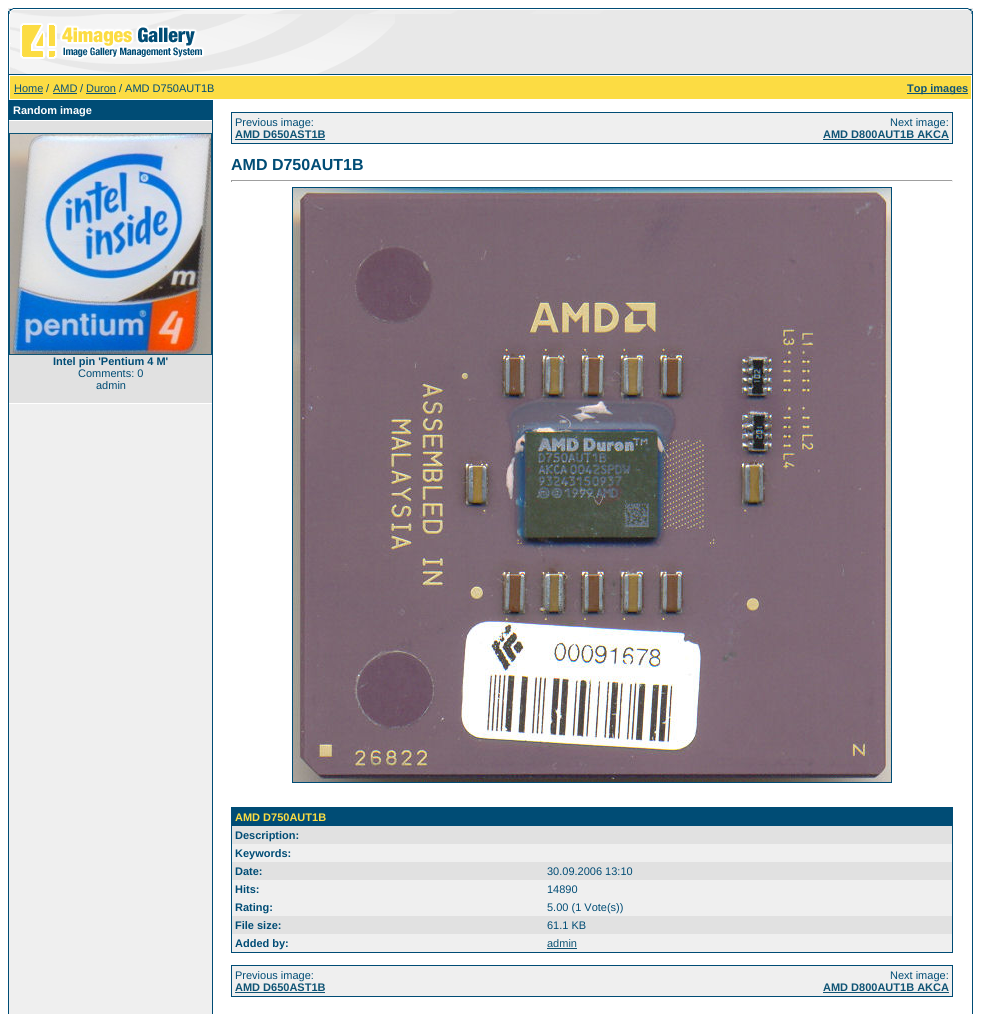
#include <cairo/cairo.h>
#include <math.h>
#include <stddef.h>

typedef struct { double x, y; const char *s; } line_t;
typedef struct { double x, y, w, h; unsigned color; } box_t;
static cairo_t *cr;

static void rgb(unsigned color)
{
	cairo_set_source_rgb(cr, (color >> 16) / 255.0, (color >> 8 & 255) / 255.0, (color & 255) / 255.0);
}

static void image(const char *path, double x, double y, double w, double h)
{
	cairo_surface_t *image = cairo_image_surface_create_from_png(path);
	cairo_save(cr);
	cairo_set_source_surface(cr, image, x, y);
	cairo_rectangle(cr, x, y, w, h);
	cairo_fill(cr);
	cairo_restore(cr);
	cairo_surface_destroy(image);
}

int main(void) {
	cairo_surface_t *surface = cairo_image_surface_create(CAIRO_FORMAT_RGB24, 981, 1014);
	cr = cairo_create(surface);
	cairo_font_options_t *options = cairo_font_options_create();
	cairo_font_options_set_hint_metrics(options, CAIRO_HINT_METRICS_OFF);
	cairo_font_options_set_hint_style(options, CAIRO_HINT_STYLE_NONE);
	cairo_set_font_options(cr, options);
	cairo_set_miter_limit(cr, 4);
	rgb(0xffffff);
	cairo_paint(cr);
	rgb(0xe8e8e8);
	cairo_rectangle(cr, 8, 8, 965, 66);
	cairo_fill(cr);
	image("img/1.png", 8, 8, 965, 6);
	image("img/2.png", 8, 14, 6, 60);
	image("img/3.png", 14, 14, 381, 60);
	{
		static const box_t items[] = {
			{972, 14, 1, 60, 0x004c75},
			{8, 74, 965, 940, 0x004c75},
			{9, 75, 963, 939, 0xffffff},
			{10, 76, 961, 23, 0xfcdc43},
			{14, 93, 29, 1, 0x0f5475},
			{53, 93, 24, 1, 0x0f5475},
			{86, 93, 30, 1, 0x0f5475},
			{907, 93, 61, 1, 0x0f5475},
			{9, 404, 203, 610, 0xefefef},
			{9, 100, 203, 20, 0x004c75},
			{9, 121, 203, 282, 0xe1e1e1},
		};
		for (size_t i = 0; i < sizeof items / sizeof *items; i++) {
			rgb(items[i].color);
			cairo_rectangle(cr, items[i].x, items[i].y, items[i].w, items[i].h);
			cairo_fill(cr);
		}
	}
	cairo_rectangle(cr, 9.5, 133.5, 202, 221);
	rgb(0x0f5475);
	cairo_set_line_width(cr, 1);
	cairo_stroke(cr);
	image("img/4.png", 10, 134, 201, 220);
	{
		static const box_t items[] = {
			{212, 100, 1, 914, 0x004c75},
			{231, 112, 722, 32, 0x004c75},
			{232, 113, 720, 30, 0xefefef},
			{235, 139, 90, 1, 0x0f5475},
			{823, 139, 126, 1, 0x0f5475},
			{231, 180, 722, 1, 0x9f9f9f},
			{952, 180, 1, 2, 0xeeeeee},
			{231, 180, 1, 2, 0x9f9f9f},
		};
		for (size_t i = 0; i < sizeof items / sizeof *items; i++) {
			rgb(items[i].color);
			cairo_rectangle(cr, items[i].x, items[i].y, items[i].w, items[i].h);
			cairo_fill(cr);
		}
	}
	cairo_rectangle(cr, 292.5, 187.5, 599, 595);
	rgb(0x004c75);
	cairo_stroke(cr);
	image("img/5.png", 293, 188, 598, 594);
	{
		static const box_t items[] = {
			{231, 807, 722, 146, 0x004c75},
			{232, 826, 720, 18, 0xe1e1e1},
			{232, 844, 720, 18, 0xefefef},
			{232, 862, 720, 18, 0xe1e1e1},
			{232, 880, 720, 18, 0xefefef},
			{232, 898, 720, 18, 0xefefef},
			{232, 916, 720, 18, 0xe1e1e1},
			{232, 934, 720, 18, 0xefefef},
			{547, 948, 30, 1, 0x0f5475},
			{231, 965, 722, 32, 0x004c75},
			{232, 966, 720, 30, 0xefefef},
			{235, 992, 90, 1, 0x0f5475},
			{823, 992, 126, 1, 0x0f5475},
		};
		for (size_t i = 0; i < sizeof items / sizeof *items; i++) {
			rgb(items[i].color);
			cairo_rectangle(cr, items[i].x, items[i].y, items[i].w, items[i].h);
			cairo_fill(cr);
		}
	}
	cairo_select_font_face(cr, "Liberation Sans", CAIRO_FONT_SLANT_NORMAL, CAIRO_FONT_WEIGHT_NORMAL);
	cairo_set_font_size(cr, 11);
	cairo_move_to(cr, 14, 92);
	cairo_show_text(cr, "Home");
	rgb(0x004c75);
	cairo_move_to(cr, 46, 92);
	cairo_show_text(cr, "/");
	rgb(0x0f5475);
	cairo_move_to(cr, 53, 92);
	cairo_show_text(cr, "AMD");
	rgb(0x004c75);
	cairo_move_to(cr, 80, 92);
	cairo_show_text(cr, "/");
	rgb(0x0f5475);
	cairo_move_to(cr, 86, 92);
	cairo_show_text(cr, "Duron");
	rgb(0x004c75);
	cairo_move_to(cr, 119, 92);
	cairo_show_text(cr, "/ AMD D750AUT1B");
	cairo_select_font_face(cr, "Liberation Sans", CAIRO_FONT_SLANT_NORMAL, CAIRO_FONT_WEIGHT_BOLD);
	rgb(0x0f5475);
	cairo_move_to(cr, 907, 92);
	cairo_show_text(cr, "Top images");
	rgb(0xffffff);
	cairo_move_to(cr, 13, 114);
	cairo_show_text(cr, "Random image");
	rgb(0x004c75);
	cairo_move_to(cr, 53, 365);
	cairo_show_text(cr, "Intel pin 'Pentium 4 M'");
	cairo_select_font_face(cr, "Liberation Sans", CAIRO_FONT_SLANT_NORMAL, CAIRO_FONT_WEIGHT_NORMAL);
	{
		static const line_t items[] = {
			{78, 377, "Comments: 0"},
			{96, 389, "admin"},
			{235, 126, "Previous image:"},
		};
		for (size_t i = 0; i < sizeof items / sizeof *items; i++) {
			cairo_move_to(cr, items[i].x, items[i].y);
			cairo_show_text(cr, items[i].s);
		}
	}
	cairo_select_font_face(cr, "Liberation Sans", CAIRO_FONT_SLANT_NORMAL, CAIRO_FONT_WEIGHT_BOLD);
	rgb(0x0f5475);
	cairo_move_to(cr, 235, 138);
	cairo_show_text(cr, "AMD D650AST1B");
	cairo_select_font_face(cr, "Liberation Sans", CAIRO_FONT_SLANT_NORMAL, CAIRO_FONT_WEIGHT_NORMAL);
	rgb(0x004c75);
	cairo_move_to(cr, 890, 126);
	cairo_show_text(cr, "Next image:");
	cairo_select_font_face(cr, "Liberation Sans", CAIRO_FONT_SLANT_NORMAL, CAIRO_FONT_WEIGHT_BOLD);
	rgb(0x0f5475);
	cairo_move_to(cr, 823, 138);
	cairo_show_text(cr, "AMD D800AUT1B AKCA");
	cairo_set_font_size(cr, 16);
	rgb(0x004c75);
	cairo_move_to(cr, 231, 170);
	cairo_show_text(cr, "AMD D750AUT1B");
	cairo_set_font_size(cr, 11);
	rgb(0xfcdc43);
	cairo_move_to(cr, 235, 821);
	cairo_show_text(cr, "AMD D750AUT1B");
	rgb(0x004c75);
	{
		static const line_t items[] = {
			{235, 839, "Description:"},
			{235, 857, "Keywords:"},
			{235, 875, "Date:"},
		};
		for (size_t i = 0; i < sizeof items / sizeof *items; i++) {
			cairo_move_to(cr, items[i].x, items[i].y);
			cairo_show_text(cr, items[i].s);
		}
	}
	cairo_select_font_face(cr, "Liberation Sans", CAIRO_FONT_SLANT_NORMAL, CAIRO_FONT_WEIGHT_NORMAL);
	cairo_move_to(cr, 547, 875);
	cairo_show_text(cr, "30.09.2006 13:10");
	cairo_select_font_face(cr, "Liberation Sans", CAIRO_FONT_SLANT_NORMAL, CAIRO_FONT_WEIGHT_BOLD);
	cairo_move_to(cr, 235, 893);
	cairo_show_text(cr, "Hits:");
	cairo_select_font_face(cr, "Liberation Sans", CAIRO_FONT_SLANT_NORMAL, CAIRO_FONT_WEIGHT_NORMAL);
	cairo_move_to(cr, 547, 893);
	cairo_show_text(cr, "14890");
	cairo_select_font_face(cr, "Liberation Sans", CAIRO_FONT_SLANT_NORMAL, CAIRO_FONT_WEIGHT_BOLD);
	cairo_move_to(cr, 235, 911);
	cairo_show_text(cr, "Rating:");
	cairo_select_font_face(cr, "Liberation Sans", CAIRO_FONT_SLANT_NORMAL, CAIRO_FONT_WEIGHT_NORMAL);
	cairo_move_to(cr, 547, 911);
	cairo_show_text(cr, "5.00 (1 Vote(s))");
	cairo_select_font_face(cr, "Liberation Sans", CAIRO_FONT_SLANT_NORMAL, CAIRO_FONT_WEIGHT_BOLD);
	cairo_move_to(cr, 235, 929);
	cairo_show_text(cr, "File size:");
	cairo_select_font_face(cr, "Liberation Sans", CAIRO_FONT_SLANT_NORMAL, CAIRO_FONT_WEIGHT_NORMAL);
	cairo_move_to(cr, 547, 929);
	cairo_show_text(cr, "61.1 KB");
	cairo_select_font_face(cr, "Liberation Sans", CAIRO_FONT_SLANT_NORMAL, CAIRO_FONT_WEIGHT_BOLD);
	cairo_move_to(cr, 235, 947);
	cairo_show_text(cr, "Added by:");
	cairo_select_font_face(cr, "Liberation Sans", CAIRO_FONT_SLANT_NORMAL, CAIRO_FONT_WEIGHT_NORMAL);
	rgb(0x0f5475);
	cairo_move_to(cr, 547, 947);
	cairo_show_text(cr, "admin");
	rgb(0x004c75);
	cairo_move_to(cr, 235, 979);
	cairo_show_text(cr, "Previous image:");
	cairo_select_font_face(cr, "Liberation Sans", CAIRO_FONT_SLANT_NORMAL, CAIRO_FONT_WEIGHT_BOLD);
	rgb(0x0f5475);
	cairo_move_to(cr, 235, 991);
	cairo_show_text(cr, "AMD D650AST1B");
	cairo_select_font_face(cr, "Liberation Sans", CAIRO_FONT_SLANT_NORMAL, CAIRO_FONT_WEIGHT_NORMAL);
	rgb(0x004c75);
	cairo_move_to(cr, 890, 979);
	cairo_show_text(cr, "Next image:");
	cairo_select_font_face(cr, "Liberation Sans", CAIRO_FONT_SLANT_NORMAL, CAIRO_FONT_WEIGHT_BOLD);
	rgb(0x0f5475);
	cairo_move_to(cr, 823, 991);
	cairo_show_text(cr, "AMD D800AUT1B AKCA");
	cairo_surface_write_to_png(surface, "page.png");
	cairo_font_options_destroy(options);
	cairo_destroy(cr);
	cairo_surface_destroy(surface);
	return 0;
}
